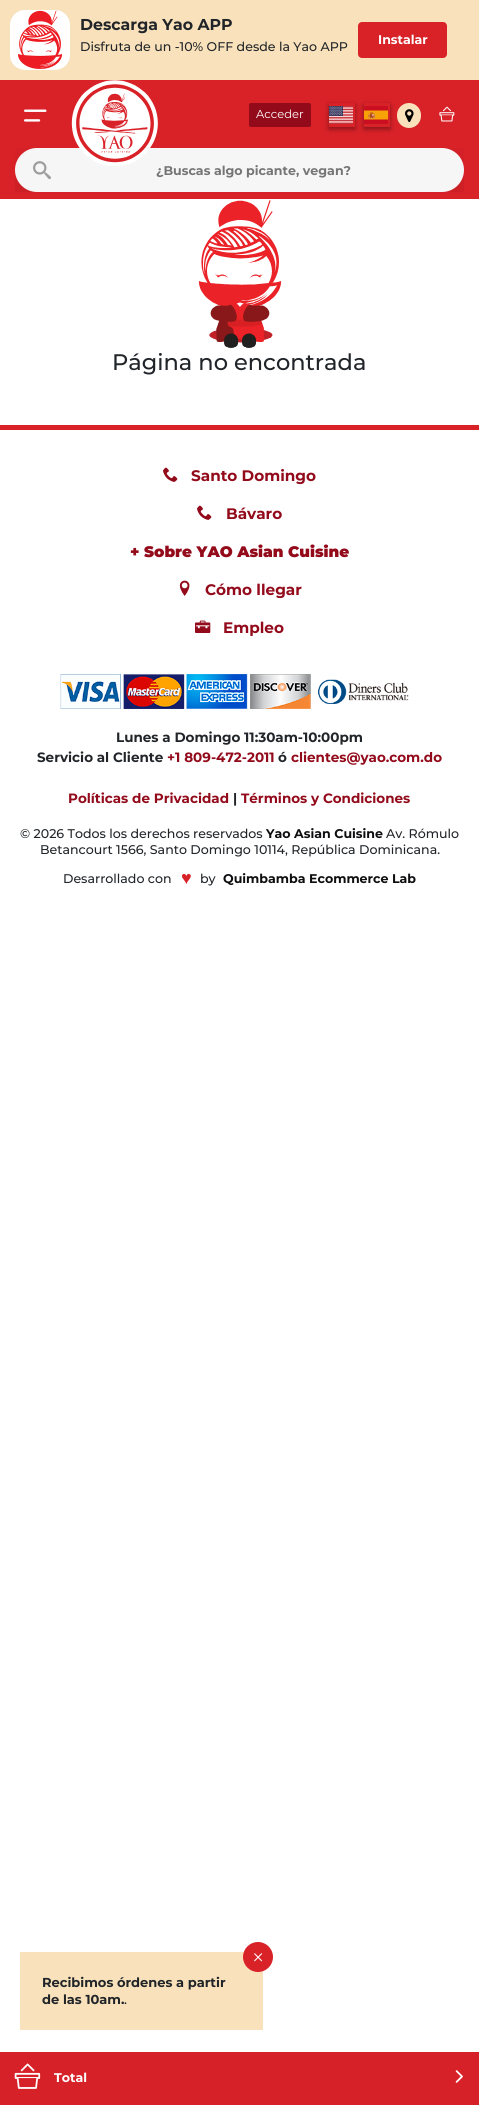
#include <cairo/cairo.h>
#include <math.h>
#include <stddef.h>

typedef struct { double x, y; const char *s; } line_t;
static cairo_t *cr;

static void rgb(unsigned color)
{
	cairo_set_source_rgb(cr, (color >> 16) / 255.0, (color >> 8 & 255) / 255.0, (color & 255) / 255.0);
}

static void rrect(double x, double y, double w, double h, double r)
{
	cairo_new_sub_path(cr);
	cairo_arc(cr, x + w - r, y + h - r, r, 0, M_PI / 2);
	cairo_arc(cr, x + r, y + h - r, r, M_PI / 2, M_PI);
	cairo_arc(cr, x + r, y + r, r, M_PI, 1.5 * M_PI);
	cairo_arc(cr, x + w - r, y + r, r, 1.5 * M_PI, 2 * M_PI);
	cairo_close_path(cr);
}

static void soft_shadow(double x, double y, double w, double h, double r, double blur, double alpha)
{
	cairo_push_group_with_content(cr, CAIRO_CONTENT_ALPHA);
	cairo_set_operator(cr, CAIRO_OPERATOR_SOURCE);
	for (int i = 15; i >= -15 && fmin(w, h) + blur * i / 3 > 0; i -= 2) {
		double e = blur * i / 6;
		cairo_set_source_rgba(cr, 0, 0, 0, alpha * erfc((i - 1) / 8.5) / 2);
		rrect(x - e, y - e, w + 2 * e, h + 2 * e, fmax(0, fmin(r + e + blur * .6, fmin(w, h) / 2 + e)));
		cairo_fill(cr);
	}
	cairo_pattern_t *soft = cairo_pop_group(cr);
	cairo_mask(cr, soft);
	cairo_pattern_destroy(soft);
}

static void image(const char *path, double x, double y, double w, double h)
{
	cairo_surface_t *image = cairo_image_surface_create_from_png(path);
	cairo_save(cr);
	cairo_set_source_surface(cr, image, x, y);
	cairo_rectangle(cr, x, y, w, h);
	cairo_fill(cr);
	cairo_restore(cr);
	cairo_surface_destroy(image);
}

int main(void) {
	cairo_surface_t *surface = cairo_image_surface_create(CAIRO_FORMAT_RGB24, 479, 2105);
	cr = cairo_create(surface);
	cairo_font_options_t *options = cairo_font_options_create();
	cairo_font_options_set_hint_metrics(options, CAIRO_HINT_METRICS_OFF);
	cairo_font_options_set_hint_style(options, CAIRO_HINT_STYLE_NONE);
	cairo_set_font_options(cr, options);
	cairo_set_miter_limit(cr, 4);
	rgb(0xffffff);
	cairo_paint(cr);
	rgb(0xf9e2bb);
	cairo_rectangle(cr, 0, 0, 479, 80);
	cairo_fill(cr);
	image("img/1.png", 10, 10, 60, 60);
	rgb(0xd92128);
	rrect(358, 22, 89, 36, 4);
	cairo_fill(cr);
	cairo_rectangle(cr, 0, 80, 479, 119);
	cairo_fill(cr);
	image("img/2.png", 24, 109, 23, 13);
	rgb(0x930a1b);
	rrect(249, 103, 62, 24, 2);
	cairo_fill(cr);
	cairo_save(cr);
	cairo_set_fill_rule(cr, CAIRO_FILL_RULE_EVEN_ODD);
	cairo_new_path(cr);
	cairo_move_to(cr, 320, 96);
	cairo_line_to(cr, 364, 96);
	cairo_line_to(cr, 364, 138);
	cairo_line_to(cr, 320, 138);
	cairo_close_path(cr);
	cairo_move_to(cr, 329, 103);
	cairo_line_to(cr, 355, 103);
	cairo_line_to(cr, 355, 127);
	cairo_line_to(cr, 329, 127);
	cairo_close_path(cr);
	cairo_clip(cr);
	rgb(0x000000);
	soft_shadow(329, 105, 26, 24, 0, 2.5, 0.4);
	cairo_restore(cr);
	image("img/4.png", 329, 106, 24, 18);
	cairo_save(cr);
	cairo_set_fill_rule(cr, CAIRO_FILL_RULE_EVEN_ODD);
	cairo_new_path(cr);
	cairo_move_to(cr, 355, 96);
	cairo_line_to(cr, 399, 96);
	cairo_line_to(cr, 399, 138);
	cairo_line_to(cr, 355, 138);
	cairo_close_path(cr);
	cairo_move_to(cr, 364, 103);
	cairo_line_to(cr, 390, 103);
	cairo_line_to(cr, 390, 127);
	cairo_line_to(cr, 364, 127);
	cairo_close_path(cr);
	cairo_clip(cr);
	rgb(0x000000);
	soft_shadow(364, 105, 26, 24, 0, 2.5, 0.4);
	cairo_restore(cr);
	image("img/5.png", 364, 106, 24, 18);
	rgb(0xf9e2bb);
	rrect(397, 103, 24, 25, 12);
	cairo_fill(cr);
	image("img/6.png", 405, 109, 9, 13);
	image("img/7.png", 439, 106, 16, 16);
	image("img/9.png", 198, 200, 84, 148);
	cairo_save(cr);
	cairo_rectangle(cr, 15, 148, 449, 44);
	cairo_clip(cr);
	rgb(0x000000);
	soft_shadow(15, 157, 449, 44, 22, 13.5, 0.1);
	cairo_restore(cr);
	rgb(0xf6f6f6);
	rrect(15, 148, 449, 44, 22);
	cairo_fill(cr);
	image("img/8.png", 33, 161, 18, 19);
	rgb(0xd92128);
	cairo_rectangle(cr, 0, 425, 479, 5);
	cairo_fill(cr);
	image("img/10.png", 163, 467, 15, 15);
	image("img/10.png", 197, 505, 15, 15);
	image("img/11.png", 179, 580, 11, 16);
	image("img/12.png", 195, 620, 16, 13);
	image("img/13.png", 60, 674, 349, 35);
	rgb(0xf9e2bb);
	cairo_rectangle(cr, 20, 1952, 243, 78);
	cairo_fill(cr);
	rgb(0xd92128);
	cairo_arc(cr, 258, 1957, 15, 0, 2 * M_PI);
	cairo_fill(cr);
	rgb(0xd72128);
	cairo_rectangle(cr, 0, 2052, 479, 53);
	cairo_fill(cr);
	image("img/14.png", 14, 2063, 27, 26);
	image("img/15.png", 455, 2070, 8, 13);
	cairo_select_font_face(cr, "Montserrat", CAIRO_FONT_SLANT_NORMAL, CAIRO_FONT_WEIGHT_BOLD);
	cairo_set_font_size(cr, 15.75);
	rgb(0x212529);
	cairo_move_to(cr, 80, 30);
	cairo_show_text(cr, "Descarga Yao APP");
	cairo_select_font_face(cr, "Montserrat Medium", CAIRO_FONT_SLANT_NORMAL, CAIRO_FONT_WEIGHT_NORMAL);
	cairo_set_font_size(cr, 12.6);
	cairo_move_to(cr, 80, 51);
	cairo_show_text(cr, "Disfruta de un -10% OFF desde la Yao APP");
	cairo_select_font_face(cr, "Montserrat", CAIRO_FONT_SLANT_NORMAL, CAIRO_FONT_WEIGHT_BOLD);
	rgb(0xffffff);
	cairo_move_to(cr, 378, 44);
	cairo_show_text(cr, "Instalar");
	cairo_select_font_face(cr, "Montserrat", CAIRO_FONT_SLANT_NORMAL, CAIRO_FONT_WEIGHT_NORMAL);
	cairo_set_font_size(cr, 11.5);
	cairo_move_to(cr, 256, 118);
	cairo_show_text(cr, "Acceder");
	cairo_select_font_face(cr, "Montserrat", CAIRO_FONT_SLANT_NORMAL, CAIRO_FONT_WEIGHT_BOLD);
	cairo_set_font_size(cr, 12.6);
	rgb(0x757575);
	cairo_move_to(cr, 156, 175);
	cairo_show_text(cr, "¿Buscas algo picante, vegan?");
	image("img/3.png", 71, 80, 87, 86);
	cairo_select_font_face(cr, "Montserrat Medium", CAIRO_FONT_SLANT_NORMAL, CAIRO_FONT_WEIGHT_NORMAL);
	cairo_set_font_size(cr, 22.5);
	rgb(0x212529);
	cairo_move_to(cr, 112, 370);
	cairo_show_text(cr, "Página no encontrada");
	cairo_select_font_face(cr, "Montserrat", CAIRO_FONT_SLANT_NORMAL, CAIRO_FONT_WEIGHT_BOLD);
	cairo_set_font_size(cr, 15.25);
	rgb(0x930a1b);
	cairo_move_to(cr, 191, 481);
	cairo_show_text(cr, "Santo Domingo");
	cairo_move_to(cr, 226, 519);
	cairo_show_text(cr, "Bávaro");
	cairo_select_font_face(cr, "Montserrat Black", CAIRO_FONT_SLANT_NORMAL, CAIRO_FONT_WEIGHT_NORMAL);
	cairo_move_to(cr, 130, 557);
	cairo_show_text(cr, "+ Sobre YAO Asian Cuisine");
	cairo_select_font_face(cr, "Montserrat", CAIRO_FONT_SLANT_NORMAL, CAIRO_FONT_WEIGHT_BOLD);
	cairo_move_to(cr, 205, 595);
	cairo_show_text(cr, "Cómo llegar");
	cairo_move_to(cr, 223, 633);
	cairo_show_text(cr, "Empleo");
	cairo_set_font_size(cr, 13.5);
	rgb(0x212529);
	cairo_move_to(cr, 116, 742);
	cairo_show_text(cr, "Lunes a Domingo 11:30am-10:00pm");
	cairo_move_to(cr, 37, 762);
	cairo_show_text(cr, "Servicio al Cliente");
	rgb(0x930a1b);
	cairo_move_to(cr, 167, 762);
	cairo_show_text(cr, "+1 809-472-2011");
	rgb(0x212529);
	cairo_move_to(cr, 278, 762);
	cairo_show_text(cr, "ó");
	rgb(0x930a1b);
	cairo_move_to(cr, 291, 762);
	cairo_show_text(cr, "clientes@yao.com.do");
	cairo_move_to(cr, 68, 803);
	cairo_show_text(cr, "Políticas de Privacidad");
	rgb(0x212529);
	cairo_move_to(cr, 233, 803);
	cairo_show_text(cr, "|");
	rgb(0x930a1b);
	cairo_move_to(cr, 241, 803);
	cairo_show_text(cr, "Términos y Condiciones");
	cairo_select_font_face(cr, "Montserrat Medium", CAIRO_FONT_SLANT_NORMAL, CAIRO_FONT_WEIGHT_NORMAL);
	cairo_set_font_size(cr, 12.6);
	rgb(0x212529);
	cairo_move_to(cr, 20, 838);
	cairo_show_text(cr, "© 2026 Todos los derechos reservados");
	cairo_select_font_face(cr, "Montserrat", CAIRO_FONT_SLANT_NORMAL, CAIRO_FONT_WEIGHT_BOLD);
	rgb(0x0e0d0f);
	cairo_move_to(cr, 266, 838);
	cairo_show_text(cr, "Yao Asian Cuisine");
	cairo_select_font_face(cr, "Montserrat Medium", CAIRO_FONT_SLANT_NORMAL, CAIRO_FONT_WEIGHT_NORMAL);
	rgb(0x212529);
	{
		static const line_t items[] = {
			{386, 838, "Av. Rómulo"},
			{40, 854, "Betancourt 1566, Santo Domingo 10114, República Dominicana."},
			{63, 883, "Desarrollado con"},
		};
		for (size_t i = 0; i < sizeof items / sizeof *items; i++) {
			cairo_move_to(cr, items[i].x, items[i].y);
			cairo_show_text(cr, items[i].s);
		}
	}
	cairo_select_font_face(cr, "Liberation Sans", CAIRO_FONT_SLANT_NORMAL, CAIRO_FONT_WEIGHT_NORMAL);
	cairo_set_font_size(cr, 18);
	rgb(0xd92128);
	cairo_move_to(cr, 181, 884);
	cairo_show_text(cr, "♥");
	cairo_select_font_face(cr, "Montserrat Medium", CAIRO_FONT_SLANT_NORMAL, CAIRO_FONT_WEIGHT_NORMAL);
	cairo_set_font_size(cr, 12.6);
	rgb(0x212529);
	cairo_move_to(cr, 200, 883);
	cairo_show_text(cr, "by");
	cairo_select_font_face(cr, "Montserrat", CAIRO_FONT_SLANT_NORMAL, CAIRO_FONT_WEIGHT_BOLD);
	rgb(0x0e0d0f);
	cairo_move_to(cr, 223, 883);
	cairo_show_text(cr, "Quimbamba Ecommerce Lab");
	cairo_select_font_face(cr, "Montserrat Light", CAIRO_FONT_SLANT_NORMAL, CAIRO_FONT_WEIGHT_NORMAL);
	cairo_set_font_size(cr, 25);
	rgb(0xffffff);
	cairo_move_to(cr, 251, 1966);
	cairo_show_text(cr, "×");
	cairo_select_font_face(cr, "Montserrat", CAIRO_FONT_SLANT_NORMAL, CAIRO_FONT_WEIGHT_BOLD);
	cairo_set_font_size(cr, 13);
	rgb(0x212529);
	cairo_move_to(cr, 42, 1987);
	cairo_show_text(cr, "Recibimos órdenes a partir");
	cairo_move_to(cr, 42, 2004);
	cairo_show_text(cr, "de las 10am.");
	cairo_select_font_face(cr, "Montserrat Medium", CAIRO_FONT_SLANT_NORMAL, CAIRO_FONT_WEIGHT_NORMAL);
	cairo_move_to(cr, 124, 2004);
	cairo_show_text(cr, ".");
	cairo_select_font_face(cr, "Montserrat", CAIRO_FONT_SLANT_NORMAL, CAIRO_FONT_WEIGHT_BOLD);
	cairo_set_font_size(cr, 12.6);
	rgb(0xffffff);
	cairo_move_to(cr, 54, 2082);
	cairo_show_text(cr, "Total");
	cairo_surface_write_to_png(surface, "page.png");
	cairo_font_options_destroy(options);
	cairo_destroy(cr);
	cairo_surface_destroy(surface);
	return 0;
}
